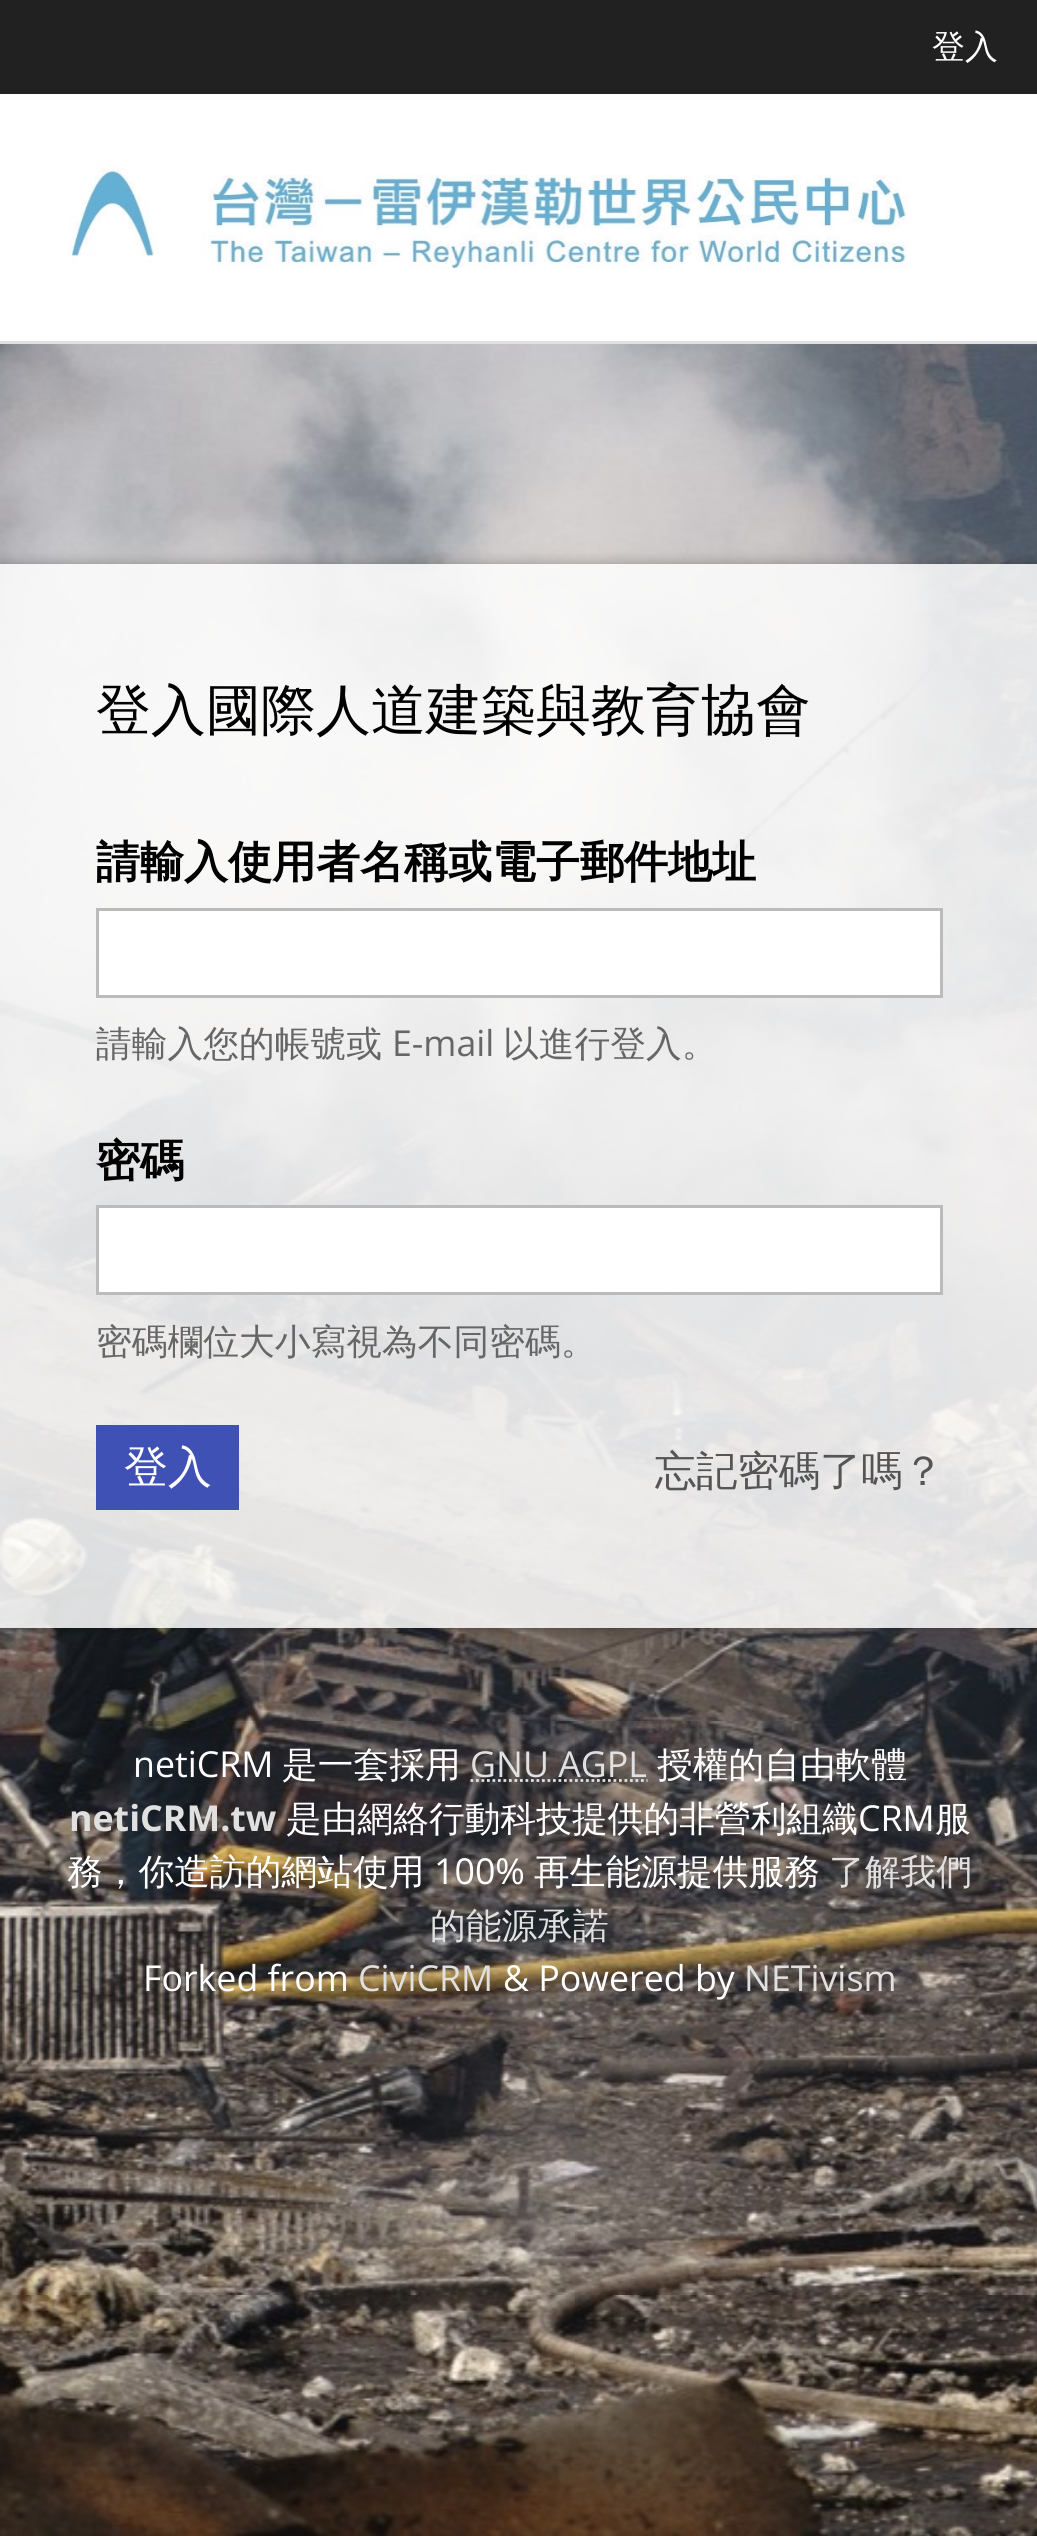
#include <cairo/cairo.h>
#include <math.h>
#include <stddef.h>

static cairo_t *cr;

static void rgb(unsigned color)
{
	cairo_set_source_rgb(cr, (color >> 16) / 255.0, (color >> 8 & 255) / 255.0, (color & 255) / 255.0);
}

static void rrect(double x, double y, double w, double h, double r)
{
	cairo_new_sub_path(cr);
	cairo_arc(cr, x + w - r, y + h - r, r, 0, M_PI / 2);
	cairo_arc(cr, x + r, y + h - r, r, M_PI / 2, M_PI);
	cairo_arc(cr, x + r, y + r, r, M_PI, 1.5 * M_PI);
	cairo_arc(cr, x + w - r, y + r, r, 1.5 * M_PI, 2 * M_PI);
	cairo_close_path(cr);
}

static void soft_shadow(double x, double y, double w, double h, double r, double blur, double alpha)
{
	cairo_push_group_with_content(cr, CAIRO_CONTENT_ALPHA);
	cairo_set_operator(cr, CAIRO_OPERATOR_SOURCE);
	for (int i = 15; i >= -15 && fmin(w, h) + blur * i / 3 > 0; i -= 2) {
		double e = blur * i / 6;
		cairo_set_source_rgba(cr, 0, 0, 0, alpha * erfc((i - 1) / 8.5) / 2);
		rrect(x - e, y - e, w + 2 * e, h + 2 * e, fmax(0, fmin(r + e + blur * .6, fmin(w, h) / 2 + e)));
		cairo_fill(cr);
	}
	cairo_pattern_t *soft = cairo_pop_group(cr);
	cairo_mask(cr, soft);
	cairo_pattern_destroy(soft);
}

static void image(const char *path, double x, double y, double w, double h)
{
	cairo_surface_t *image = cairo_image_surface_create_from_png(path);
	cairo_save(cr);
	cairo_set_source_surface(cr, image, x, y);
	cairo_rectangle(cr, x, y, w, h);
	cairo_fill(cr);
	cairo_restore(cr);
	cairo_surface_destroy(image);
}

int main(void) {
	cairo_surface_t *surface = cairo_image_surface_create(CAIRO_FORMAT_RGB24, 1037, 2536);
	cr = cairo_create(surface);
	cairo_font_options_t *options = cairo_font_options_create();
	cairo_font_options_set_hint_metrics(options, CAIRO_HINT_METRICS_OFF);
	cairo_font_options_set_hint_style(options, CAIRO_HINT_STYLE_NONE);
	cairo_set_font_options(cr, options);
	cairo_set_miter_limit(cr, 4);
	rgb(0xffffff);
	cairo_paint(cr);
	image("img/1.png", 0, 344, 1037, 2192);
	rgb(0xe0e0e0);
	cairo_rectangle(cr, 0, 341, 1037, 3);
	cairo_fill(cr);
	rgb(0x212121);
	cairo_rectangle(cr, 0, 0, 1037, 94);
	cairo_fill(cr);
	image("img/2.png", 69, 162, 844, 107);
	cairo_save(cr);
	cairo_set_fill_rule(cr, CAIRO_FILL_RULE_EVEN_ODD);
	cairo_new_path(cr);
	cairo_move_to(cr, 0, 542);
	cairo_line_to(cr, 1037, 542);
	cairo_line_to(cr, 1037, 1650);
	cairo_line_to(cr, 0, 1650);
	cairo_close_path(cr);
	cairo_move_to(cr, 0, 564);
	cairo_line_to(cr, 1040, 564);
	cairo_line_to(cr, 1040, 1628);
	cairo_line_to(cr, 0, 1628);
	cairo_close_path(cr);
	cairo_clip(cr);
	rgb(0x000000);
	soft_shadow(0, 564, 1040, 1064, 0, 7, 0.3);
	cairo_restore(cr);
	cairo_set_source_rgba(cr, 1, 1, 1, 0.85);
	cairo_rectangle(cr, 0, 564, 1037, 1064);
	cairo_fill(cr);
	rgb(0xffffff);
	cairo_rectangle(cr, 97.5, 909.5, 844, 87);
	cairo_fill_preserve(cr);
	rgb(0xbbbbbb);
	cairo_set_line_width(cr, 3);
	cairo_stroke(cr);
	rgb(0xffffff);
	cairo_rectangle(cr, 97.5, 1206.5, 844, 87);
	cairo_fill_preserve(cr);
	rgb(0xbbbbbb);
	cairo_stroke(cr);
	rgb(0x3f51b5);
	cairo_rectangle(cr, 96, 1425, 143, 85);
	cairo_fill(cr);
	cairo_new_path(cr);
	cairo_move_to(cr, 470.5, 1780.5);
	cairo_line_to(cr, 647.5, 1780.5);
	rgb(0xe0e0e0);
	cairo_set_line_width(cr, 2.8);
	cairo_set_dash(cr, (double[]){2.75, 2.75}, 2, 0);
	cairo_stroke(cr);
	cairo_select_font_face(cr, "WenQuanYi Zen Hei Medium", CAIRO_FONT_SLANT_NORMAL, CAIRO_FONT_WEIGHT_NORMAL);
	cairo_set_font_size(cr, 33);
	rgb(0xffffff);
	cairo_move_to(cr, 932, 58);
	cairo_show_text(cr, "登入");
	cairo_set_font_size(cr, 55);
	rgb(0x000000);
	cairo_move_to(cr, 96, 729);
	cairo_show_text(cr, "登入國際人道建築與教育協會");
	cairo_select_font_face(cr, "WenQuanYi Zen Hei", CAIRO_FONT_SLANT_NORMAL, CAIRO_FONT_WEIGHT_BOLD);
	cairo_set_font_size(cr, 44);
	cairo_move_to(cr, 96, 877);
	cairo_show_text(cr, "請輸入使用者名稱或電子郵件地址");
	cairo_select_font_face(cr, "WenQuanYi Zen Hei Medium", CAIRO_FONT_SLANT_NORMAL, CAIRO_FONT_WEIGHT_NORMAL);
	cairo_set_font_size(cr, 35.75);
	rgb(0x666666);
	cairo_move_to(cr, 96, 1056);
	cairo_show_text(cr, "請輸入您的帳號或");
	cairo_select_font_face(cr, "Open Sans", CAIRO_FONT_SLANT_NORMAL, CAIRO_FONT_WEIGHT_NORMAL);
	cairo_move_to(cr, 392, 1056);
	cairo_show_text(cr, "E-mail");
	cairo_select_font_face(cr, "WenQuanYi Zen Hei Medium", CAIRO_FONT_SLANT_NORMAL, CAIRO_FONT_WEIGHT_NORMAL);
	cairo_move_to(cr, 503, 1056);
	cairo_show_text(cr, "以進行登入。");
	cairo_select_font_face(cr, "WenQuanYi Zen Hei", CAIRO_FONT_SLANT_NORMAL, CAIRO_FONT_WEIGHT_BOLD);
	cairo_set_font_size(cr, 44);
	rgb(0x000000);
	cairo_move_to(cr, 96, 1176);
	cairo_show_text(cr, "密碼");
	cairo_select_font_face(cr, "WenQuanYi Zen Hei Medium", CAIRO_FONT_SLANT_NORMAL, CAIRO_FONT_WEIGHT_NORMAL);
	cairo_set_font_size(cr, 35.75);
	rgb(0x666666);
	cairo_move_to(cr, 96, 1354);
	cairo_show_text(cr, "密碼欄位大小寫視為不同密碼。");
	cairo_set_font_size(cr, 44);
	rgb(0xffffff);
	cairo_move_to(cr, 124, 1482);
	cairo_show_text(cr, "登入");
	cairo_set_font_size(cr, 41.25);
	rgb(0x555555);
	cairo_move_to(cr, 655, 1485);
	cairo_show_text(cr, "忘記密碼了嗎？");
	cairo_select_font_face(cr, "Open Sans", CAIRO_FONT_SLANT_NORMAL, CAIRO_FONT_WEIGHT_NORMAL);
	cairo_set_font_size(cr, 35.75);
	rgb(0xffffff);
	cairo_move_to(cr, 133, 1777);
	cairo_show_text(cr, "netiCRM");
	cairo_select_font_face(cr, "WenQuanYi Zen Hei Medium", CAIRO_FONT_SLANT_NORMAL, CAIRO_FONT_WEIGHT_NORMAL);
	cairo_move_to(cr, 282, 1777);
	cairo_show_text(cr, "是一套採用");
	cairo_select_font_face(cr, "Open Sans", CAIRO_FONT_SLANT_NORMAL, CAIRO_FONT_WEIGHT_NORMAL);
	rgb(0xe0e0e0);
	cairo_move_to(cr, 470, 1777);
	cairo_show_text(cr, "GNU AGPL");
	cairo_select_font_face(cr, "WenQuanYi Zen Hei Medium", CAIRO_FONT_SLANT_NORMAL, CAIRO_FONT_WEIGHT_NORMAL);
	rgb(0xffffff);
	cairo_move_to(cr, 657, 1777);
	cairo_show_text(cr, "授權的自由軟體");
	cairo_select_font_face(cr, "Open Sans", CAIRO_FONT_SLANT_NORMAL, CAIRO_FONT_WEIGHT_BOLD);
	rgb(0xe0e0e0);
	cairo_move_to(cr, 69, 1831);
	cairo_show_text(cr, "netiCRM.tw");
	cairo_select_font_face(cr, "WenQuanYi Zen Hei Medium", CAIRO_FONT_SLANT_NORMAL, CAIRO_FONT_WEIGHT_NORMAL);
	rgb(0xffffff);
	cairo_move_to(cr, 286, 1831);
	cairo_show_text(cr, "是由網絡行動科技提供的非營利組織");
	cairo_select_font_face(cr, "Open Sans", CAIRO_FONT_SLANT_NORMAL, CAIRO_FONT_WEIGHT_NORMAL);
	cairo_move_to(cr, 858, 1831);
	cairo_show_text(cr, "CRM");
	cairo_select_font_face(cr, "WenQuanYi Zen Hei Medium", CAIRO_FONT_SLANT_NORMAL, CAIRO_FONT_WEIGHT_NORMAL);
	cairo_move_to(cr, 935, 1831);
	cairo_show_text(cr, "服");
	cairo_move_to(cr, 67, 1884);
	cairo_show_text(cr, "務，你造訪的網站使用");
	cairo_select_font_face(cr, "Open Sans", CAIRO_FONT_SLANT_NORMAL, CAIRO_FONT_WEIGHT_NORMAL);
	cairo_move_to(cr, 434, 1884);
	cairo_show_text(cr, "100%");
	cairo_select_font_face(cr, "WenQuanYi Zen Hei Medium", CAIRO_FONT_SLANT_NORMAL, CAIRO_FONT_WEIGHT_NORMAL);
	cairo_move_to(cr, 534, 1884);
	cairo_show_text(cr, "再生能源提供服務");
	rgb(0xe0e0e0);
	cairo_move_to(cr, 829, 1884);
	cairo_show_text(cr, "了解我們");
	cairo_move_to(cr, 430, 1938);
	cairo_show_text(cr, "的能源承諾");
	cairo_select_font_face(cr, "Open Sans", CAIRO_FONT_SLANT_NORMAL, CAIRO_FONT_WEIGHT_NORMAL);
	rgb(0xffffff);
	cairo_move_to(cr, 143, 1991);
	cairo_show_text(cr, "Forked from");
	rgb(0xe0e0e0);
	cairo_move_to(cr, 358, 1991);
	cairo_show_text(cr, "CiviCRM");
	rgb(0xffffff);
	cairo_move_to(cr, 503, 1991);
	cairo_show_text(cr, "& Powered by");
	rgb(0xe0e0e0);
	cairo_move_to(cr, 744, 1991);
	cairo_show_text(cr, "NETivism");
	cairo_surface_write_to_png(surface, "page.png");
	cairo_font_options_destroy(options);
	cairo_destroy(cr);
	cairo_surface_destroy(surface);
	return 0;
}
